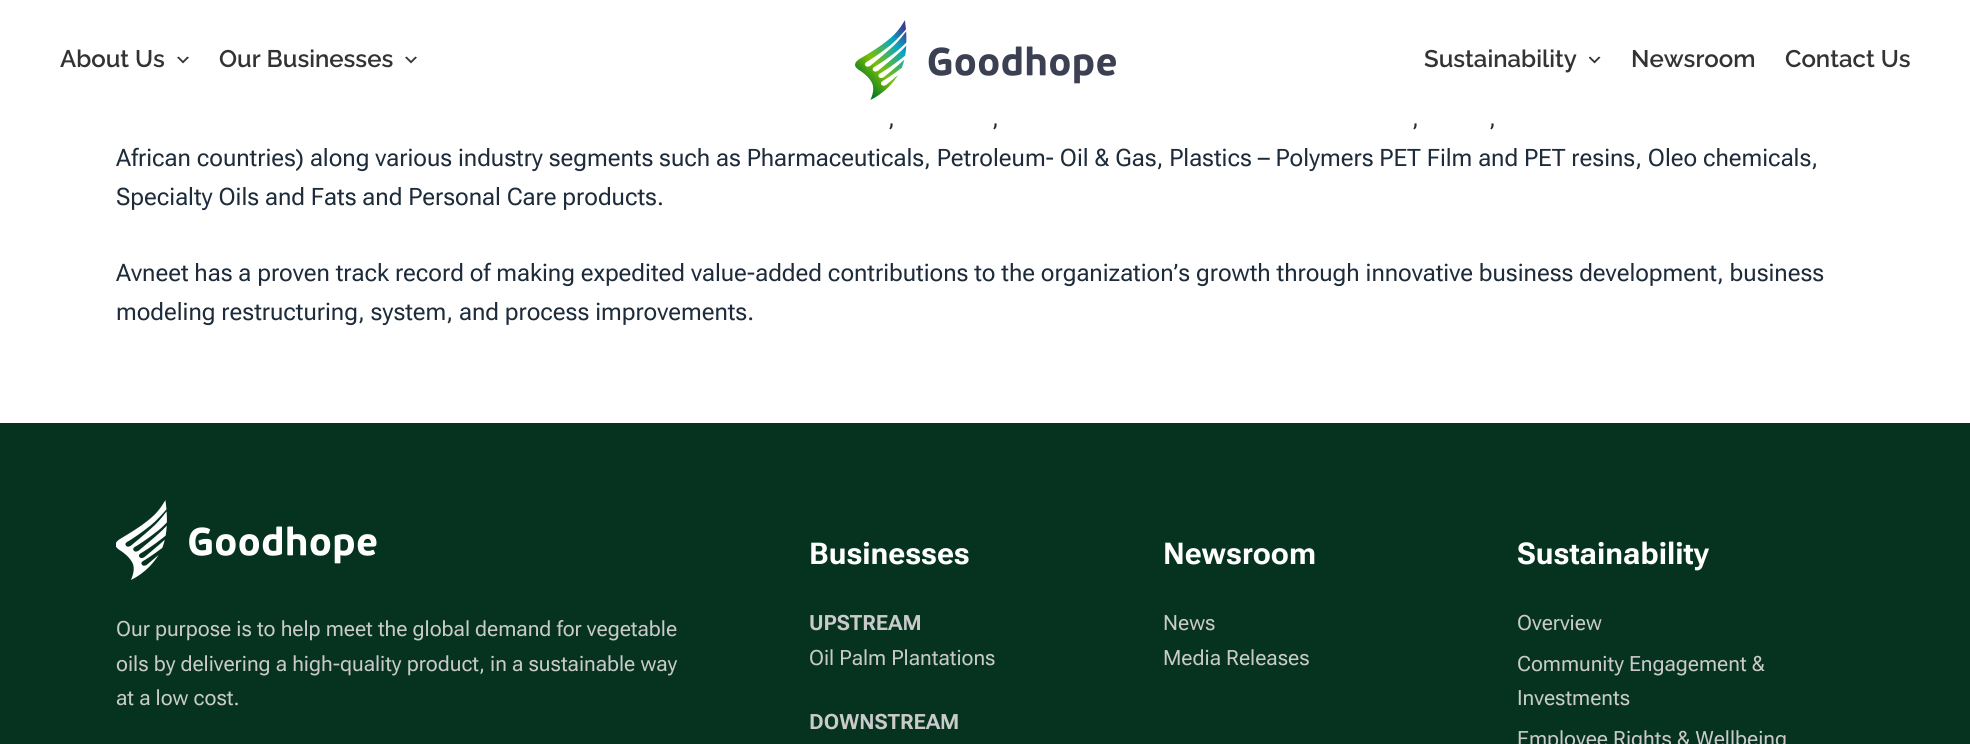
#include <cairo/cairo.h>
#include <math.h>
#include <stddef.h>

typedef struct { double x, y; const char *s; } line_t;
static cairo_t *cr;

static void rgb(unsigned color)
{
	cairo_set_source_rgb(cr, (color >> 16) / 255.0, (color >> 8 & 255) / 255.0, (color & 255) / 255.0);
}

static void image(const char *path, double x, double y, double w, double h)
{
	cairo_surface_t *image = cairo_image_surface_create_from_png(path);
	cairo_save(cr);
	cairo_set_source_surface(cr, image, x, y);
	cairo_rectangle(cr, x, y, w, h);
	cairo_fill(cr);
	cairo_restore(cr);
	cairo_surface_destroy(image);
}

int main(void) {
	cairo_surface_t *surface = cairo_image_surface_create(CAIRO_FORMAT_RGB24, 1970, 744);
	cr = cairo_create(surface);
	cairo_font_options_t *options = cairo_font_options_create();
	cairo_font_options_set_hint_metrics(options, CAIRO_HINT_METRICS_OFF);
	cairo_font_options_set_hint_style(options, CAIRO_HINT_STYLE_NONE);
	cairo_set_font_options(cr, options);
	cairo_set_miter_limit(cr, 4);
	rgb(0xffffff);
	cairo_paint(cr);
	image("img/1.png", 177, 56, 12, 8);
	image("img/1.png", 405, 56, 12, 8);
	image("img/2.png", 855, 20, 261, 80);
	image("img/3.png", 1589, 56, 12, 8);
	rgb(0x053320);
	cairo_rectangle(cr, 0, 423, 1970, 321);
	cairo_fill(cr);
	image("img/4.png", 116, 500, 261, 80);
	cairo_select_font_face(cr, "Raleway Thin", CAIRO_FONT_SLANT_NORMAL, CAIRO_FONT_WEIGHT_NORMAL);
	cairo_set_font_size(cr, 24);
	rgb(0x333333);
	{
		static const line_t items[] = {
			{60, 67, "About Us"},
			{219, 67, "Our Businesses"},
			{1424, 67, "Sustainability"},
			{1631, 67, "Newsroom"},
			{1785, 67, "Contact Us"},
		};
		for (size_t i = 0; i < sizeof items / sizeof *items; i++) {
			cairo_move_to(cr, items[i].x, items[i].y);
			cairo_show_text(cr, items[i].s);
		}
	}
	cairo_select_font_face(cr, "Roboto Flex", CAIRO_FONT_SLANT_NORMAL, CAIRO_FONT_WEIGHT_NORMAL);
	rgb(0x1d2b3a);
	{
		static const line_t items[] = {
			{888, 126, ","},
			{992, 126, ","},
			{1412, 126, ","},
			{1489, 126, ","},
			{116, 166, "African countries) along various industry segments such as Pharmaceuticals, Petroleum- Oil & Gas, Plastics – Polymers PET Film and PET resins, Oleo chemicals,"},
			{116, 205, "Specialty Oils and Fats and Personal Care products."},
			{116, 281, "Avneet has a proven track record of making expedited value-added contributions to the organization’s growth through innovative business development, business"},
			{116, 320, "modeling restructuring, system, and process improvements."},
		};
		for (size_t i = 0; i < sizeof items / sizeof *items; i++) {
			cairo_move_to(cr, items[i].x, items[i].y);
			cairo_show_text(cr, items[i].s);
		}
	}
	cairo_set_font_size(cr, 21);
	rgb(0xcacaca);
	{
		static const line_t items[] = {
			{116, 636, "Our purpose is to help meet the global demand for vegetable"},
			{116, 671, "oils by delivering a high-quality product, in a sustainable way"},
			{116, 705, "at a low cost."},
		};
		for (size_t i = 0; i < sizeof items / sizeof *items; i++) {
			cairo_move_to(cr, items[i].x, items[i].y);
			cairo_show_text(cr, items[i].s);
		}
	}
	cairo_select_font_face(cr, "Roboto Flex", CAIRO_FONT_SLANT_NORMAL, CAIRO_FONT_WEIGHT_BOLD);
	cairo_set_font_size(cr, 30);
	rgb(0xffffff);
	cairo_move_to(cr, 809, 564);
	cairo_show_text(cr, "Businesses");
	cairo_set_font_size(cr, 21);
	rgb(0xcacaca);
	cairo_move_to(cr, 809, 630);
	cairo_show_text(cr, "UPSTREAM");
	cairo_select_font_face(cr, "Roboto Flex", CAIRO_FONT_SLANT_NORMAL, CAIRO_FONT_WEIGHT_NORMAL);
	cairo_move_to(cr, 809, 665);
	cairo_show_text(cr, "Oil Palm Plantations");
	cairo_select_font_face(cr, "Roboto Flex", CAIRO_FONT_SLANT_NORMAL, CAIRO_FONT_WEIGHT_BOLD);
	cairo_move_to(cr, 809, 729);
	cairo_show_text(cr, "DOWNSTREAM");
	cairo_set_font_size(cr, 30);
	rgb(0xffffff);
	cairo_move_to(cr, 1163, 564);
	cairo_show_text(cr, "Newsroom");
	cairo_select_font_face(cr, "Roboto Flex", CAIRO_FONT_SLANT_NORMAL, CAIRO_FONT_WEIGHT_NORMAL);
	cairo_set_font_size(cr, 21);
	rgb(0xcacaca);
	cairo_move_to(cr, 1163, 630);
	cairo_show_text(cr, "News");
	cairo_move_to(cr, 1163, 665);
	cairo_show_text(cr, "Media Releases");
	cairo_select_font_face(cr, "Roboto Flex", CAIRO_FONT_SLANT_NORMAL, CAIRO_FONT_WEIGHT_BOLD);
	cairo_set_font_size(cr, 30);
	rgb(0xffffff);
	cairo_move_to(cr, 1517, 564);
	cairo_show_text(cr, "Sustainability");
	cairo_select_font_face(cr, "Roboto Flex", CAIRO_FONT_SLANT_NORMAL, CAIRO_FONT_WEIGHT_NORMAL);
	cairo_set_font_size(cr, 21);
	rgb(0xcacaca);
	{
		static const line_t items[] = {
			{1517, 630, "Overview"},
			{1517, 671, "Community Engagement &"},
			{1517, 705, "Investments"},
			{1517, 746, "Employee Rights & Wellbeing"},
		};
		for (size_t i = 0; i < sizeof items / sizeof *items; i++) {
			cairo_move_to(cr, items[i].x, items[i].y);
			cairo_show_text(cr, items[i].s);
		}
	}
	cairo_surface_write_to_png(surface, "page.png");
	cairo_font_options_destroy(options);
	cairo_destroy(cr);
	cairo_surface_destroy(surface);
	return 0;
}
